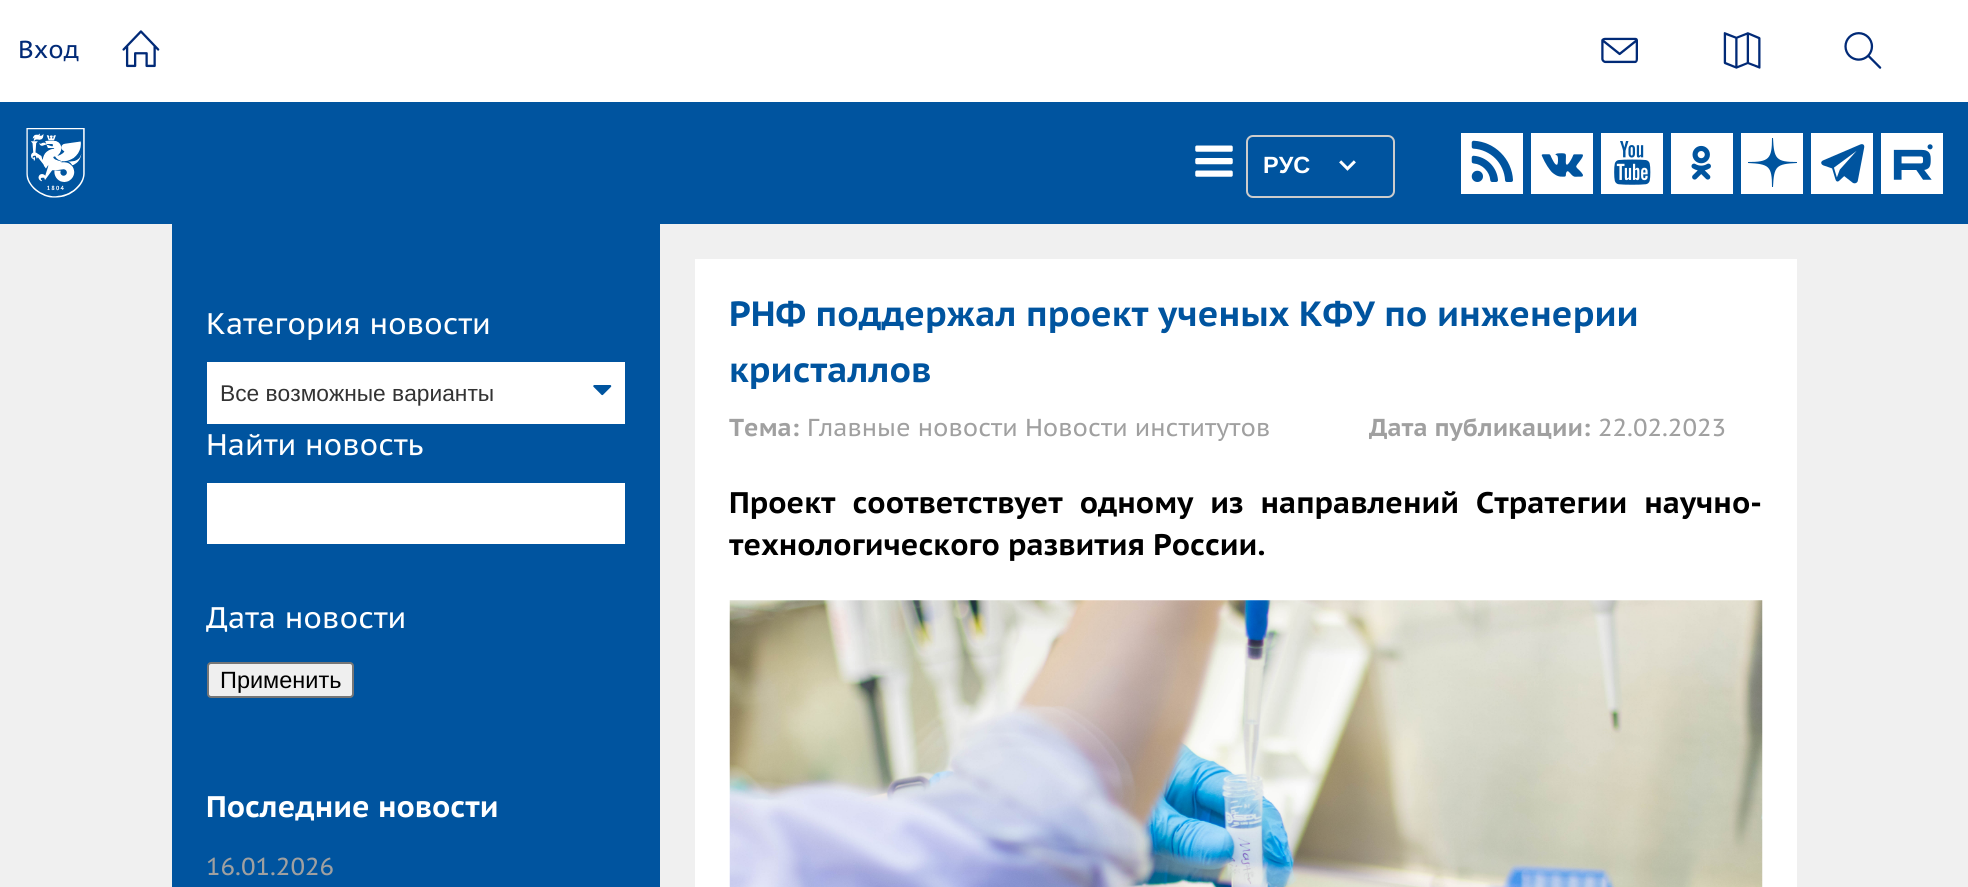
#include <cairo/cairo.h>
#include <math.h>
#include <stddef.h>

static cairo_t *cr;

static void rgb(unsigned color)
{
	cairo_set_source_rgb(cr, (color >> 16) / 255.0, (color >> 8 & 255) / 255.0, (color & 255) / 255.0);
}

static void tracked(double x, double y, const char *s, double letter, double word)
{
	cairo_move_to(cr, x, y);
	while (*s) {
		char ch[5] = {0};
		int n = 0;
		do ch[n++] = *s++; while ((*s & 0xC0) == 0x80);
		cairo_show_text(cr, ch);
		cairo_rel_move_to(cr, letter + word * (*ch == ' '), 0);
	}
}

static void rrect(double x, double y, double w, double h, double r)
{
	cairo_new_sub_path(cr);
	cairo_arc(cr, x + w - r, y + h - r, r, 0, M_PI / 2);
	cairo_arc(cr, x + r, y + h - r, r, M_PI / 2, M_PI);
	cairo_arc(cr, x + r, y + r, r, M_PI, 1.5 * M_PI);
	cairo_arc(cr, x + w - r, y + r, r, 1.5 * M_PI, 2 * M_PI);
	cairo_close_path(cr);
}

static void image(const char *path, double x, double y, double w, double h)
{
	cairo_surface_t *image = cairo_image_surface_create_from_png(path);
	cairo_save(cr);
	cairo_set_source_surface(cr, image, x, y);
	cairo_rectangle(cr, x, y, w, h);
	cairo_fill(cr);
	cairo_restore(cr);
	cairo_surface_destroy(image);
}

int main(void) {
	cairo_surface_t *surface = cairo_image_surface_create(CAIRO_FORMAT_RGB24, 1968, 887);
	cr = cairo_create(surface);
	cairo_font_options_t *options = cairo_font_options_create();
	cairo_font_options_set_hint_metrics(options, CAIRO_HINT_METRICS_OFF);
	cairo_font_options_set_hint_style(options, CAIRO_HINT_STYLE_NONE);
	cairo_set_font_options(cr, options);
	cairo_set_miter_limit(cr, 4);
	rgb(0xf0f0f0);
	cairo_paint(cr);
	rgb(0xffffff);
	cairo_rectangle(cr, 0, 0, 1968, 102);
	cairo_fill(cr);
	image("img/1.png", 122, 30, 38, 38);
	image("img/2.png", 1601, 37, 37, 27);
	image("img/3.png", 1723, 32, 38, 37);
	image("img/4.png", 1844, 32, 38, 37);
	rgb(0x00549f);
	cairo_rectangle(cr, 0, 102, 1968, 122);
	cairo_fill(cr);
	image("img/5.png", 26, 128, 59, 70);
	image("img/6.png", 1195, 145, 38, 32);
	rrect(1247, 136, 147, 61, 6);
	rgb(0xcccccc);
	cairo_stroke(cr);
	image("img/7.png", 1339, 160, 17, 11);
	rgb(0xffffff);
	cairo_rectangle(cr, 1461, 133, 62, 61);
	cairo_fill(cr);
	image("img/8.png", 1471, 140, 42, 42);
	cairo_rectangle(cr, 1531, 133, 62, 61);
	cairo_fill(cr);
	image("img/9.png", 1541, 153, 42, 24);
	cairo_rectangle(cr, 1601, 133, 62, 61);
	cairo_fill(cr);
	image("img/10.png", 1614, 141, 37, 44);
	cairo_rectangle(cr, 1671, 133, 62, 61);
	cairo_fill(cr);
	image("img/11.png", 1691, 145, 20, 35);
	cairo_rectangle(cr, 1741, 133, 62, 61);
	cairo_fill(cr);
	rgb(0x00549f);
	cairo_new_path(cr);
	cairo_move_to(cr, 1797, 163);
	cairo_line_to(cr, 1797, 162);
	cairo_curve_to(cr, 1776, 162, 1774, 159, 1773, 138);
	cairo_line_to(cr, 1772, 138);
	cairo_curve_to(cr, 1772, 159, 1769, 162, 1748, 162);
	cairo_line_to(cr, 1748, 163);
	cairo_curve_to(cr, 1769, 164, 1772, 166, 1772, 187);
	cairo_line_to(cr, 1773, 187);
	cairo_curve_to(cr, 1774, 166, 1776, 164, 1797, 163);
	cairo_fill(cr);
	rgb(0xffffff);
	cairo_rectangle(cr, 1811, 133, 62, 61);
	cairo_fill(cr);
	image("img/12.png", 1821, 144, 44, 40);
	cairo_rectangle(cr, 1881, 133, 62, 61);
	cairo_fill(cr);
	image("img/13.png", 1893, 144, 40, 36);
	rgb(0x00549f);
	cairo_rectangle(cr, 172, 224, 488, 663);
	cairo_fill(cr);
	rgb(0xffffff);
	cairo_rectangle(cr, 207, 362, 418, 62);
	cairo_fill(cr);
	image("img/14.png", 593, 385, 19, 11);
	cairo_rectangle(cr, 207, 483, 418, 61);
	cairo_fill(cr);
	rgb(0xefefef);
	rrect(208, 663, 145, 34, 3);
	cairo_fill_preserve(cr);
	rgb(0x767676);
	cairo_stroke(cr);
	rgb(0xffffff);
	cairo_rectangle(cr, 695, 259, 1102, 628);
	cairo_fill(cr);
	image("img/15.png", 729, 600, 1034, 287);
	cairo_select_font_face(cr, "PT Sans Caption", CAIRO_FONT_SLANT_NORMAL, CAIRO_FONT_WEIGHT_NORMAL);
	cairo_set_font_size(cr, 24.5);
	rgb(0x012a77);
	cairo_move_to(cr, 18, 58);
	cairo_show_text(cr, "Вход");
	cairo_select_font_face(cr, "Liberation Sans", CAIRO_FONT_SLANT_NORMAL, CAIRO_FONT_WEIGHT_BOLD);
	cairo_set_font_size(cr, 23.5);
	rgb(0xffffff);
	cairo_move_to(cr, 1263, 173);
	cairo_show_text(cr, "РУС");
	cairo_select_font_face(cr, "PT Sans Caption", CAIRO_FONT_SLANT_NORMAL, CAIRO_FONT_WEIGHT_NORMAL);
	cairo_set_font_size(cr, 29.75);
	cairo_move_to(cr, 206, 334);
	cairo_show_text(cr, "Категория новости");
	cairo_select_font_face(cr, "Liberation Sans", CAIRO_FONT_SLANT_NORMAL, CAIRO_FONT_WEIGHT_NORMAL);
	cairo_set_font_size(cr, 22.75);
	rgb(0x333333);
	cairo_move_to(cr, 220, 401);
	cairo_show_text(cr, "Все возможные варианты");
	cairo_select_font_face(cr, "PT Sans Caption", CAIRO_FONT_SLANT_NORMAL, CAIRO_FONT_WEIGHT_NORMAL);
	cairo_set_font_size(cr, 29.75);
	rgb(0xffffff);
	cairo_move_to(cr, 206, 455);
	cairo_show_text(cr, "Найти новость");
	cairo_move_to(cr, 206, 628);
	cairo_show_text(cr, "Дата новости");
	cairo_select_font_face(cr, "Liberation Sans", CAIRO_FONT_SLANT_NORMAL, CAIRO_FONT_WEIGHT_NORMAL);
	cairo_set_font_size(cr, 23.5);
	rgb(0x000000);
	cairo_move_to(cr, 220, 688);
	cairo_show_text(cr, "Применить");
	cairo_select_font_face(cr, "PT Sans Caption", CAIRO_FONT_SLANT_NORMAL, CAIRO_FONT_WEIGHT_BOLD);
	cairo_set_font_size(cr, 29.75);
	rgb(0xffffff);
	cairo_move_to(cr, 206, 817);
	cairo_show_text(cr, "Последние новости");
	cairo_select_font_face(cr, "PT Sans Caption", CAIRO_FONT_SLANT_NORMAL, CAIRO_FONT_WEIGHT_NORMAL);
	cairo_set_font_size(cr, 24.5);
	rgb(0xa0a0a0);
	cairo_move_to(cr, 206, 875);
	cairo_show_text(cr, "16.01.2026");
	cairo_select_font_face(cr, "PT Sans Caption", CAIRO_FONT_SLANT_NORMAL, CAIRO_FONT_WEIGHT_BOLD);
	cairo_set_font_size(cr, 35);
	rgb(0x00549f);
	cairo_move_to(cr, 729, 326);
	cairo_show_text(cr, "РНФ поддержал проект ученых КФУ по инженерии");
	cairo_move_to(cr, 729, 382);
	cairo_show_text(cr, "кристаллов");
	cairo_set_font_size(cr, 24.5);
	rgb(0xa0a0a0);
	cairo_move_to(cr, 729, 436);
	cairo_show_text(cr, "Тема:");
	cairo_select_font_face(cr, "PT Sans Caption", CAIRO_FONT_SLANT_NORMAL, CAIRO_FONT_WEIGHT_NORMAL);
	cairo_move_to(cr, 807, 436);
	cairo_show_text(cr, "Главные новости Новости институтов");
	cairo_select_font_face(cr, "PT Sans Caption", CAIRO_FONT_SLANT_NORMAL, CAIRO_FONT_WEIGHT_BOLD);
	cairo_move_to(cr, 1369, 436);
	cairo_show_text(cr, "Дата публикации:");
	cairo_select_font_face(cr, "PT Sans Caption", CAIRO_FONT_SLANT_NORMAL, CAIRO_FONT_WEIGHT_NORMAL);
	cairo_move_to(cr, 1598, 436);
	cairo_show_text(cr, "22.02.2023");
	cairo_select_font_face(cr, "PT Sans Caption", CAIRO_FONT_SLANT_NORMAL, CAIRO_FONT_WEIGHT_BOLD);
	cairo_set_font_size(cr, 29.75);
	rgb(0x000000);
	tracked(729, 513, "Проект соответствует одному из направлений Стратегии научно-", 0, 8.75);
	cairo_move_to(cr, 729, 555);
	cairo_show_text(cr, "технологического развития России.");
	cairo_surface_write_to_png(surface, "page.png");
	cairo_font_options_destroy(options);
	cairo_destroy(cr);
	cairo_surface_destroy(surface);
	return 0;
}
